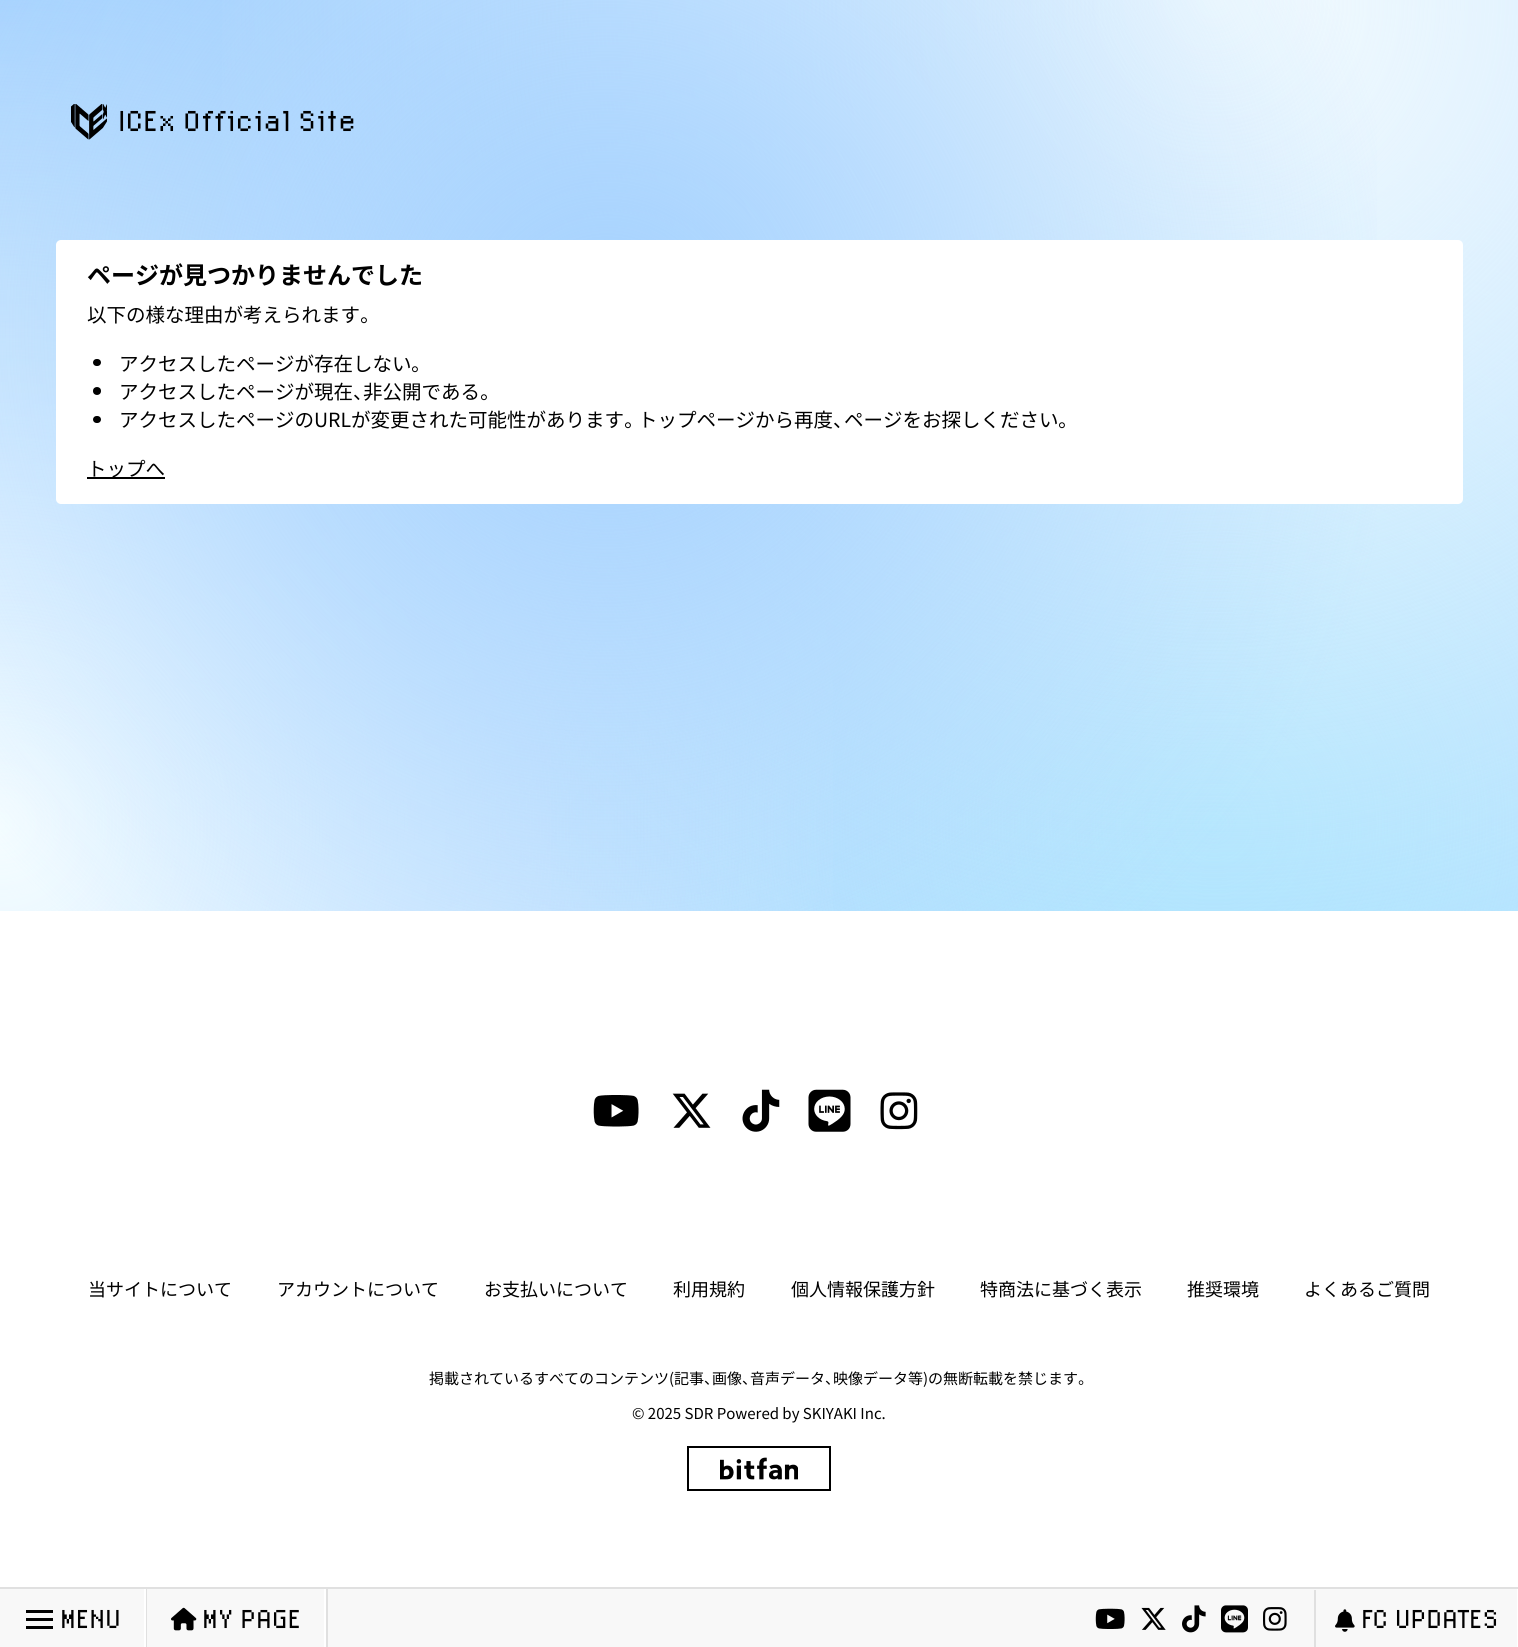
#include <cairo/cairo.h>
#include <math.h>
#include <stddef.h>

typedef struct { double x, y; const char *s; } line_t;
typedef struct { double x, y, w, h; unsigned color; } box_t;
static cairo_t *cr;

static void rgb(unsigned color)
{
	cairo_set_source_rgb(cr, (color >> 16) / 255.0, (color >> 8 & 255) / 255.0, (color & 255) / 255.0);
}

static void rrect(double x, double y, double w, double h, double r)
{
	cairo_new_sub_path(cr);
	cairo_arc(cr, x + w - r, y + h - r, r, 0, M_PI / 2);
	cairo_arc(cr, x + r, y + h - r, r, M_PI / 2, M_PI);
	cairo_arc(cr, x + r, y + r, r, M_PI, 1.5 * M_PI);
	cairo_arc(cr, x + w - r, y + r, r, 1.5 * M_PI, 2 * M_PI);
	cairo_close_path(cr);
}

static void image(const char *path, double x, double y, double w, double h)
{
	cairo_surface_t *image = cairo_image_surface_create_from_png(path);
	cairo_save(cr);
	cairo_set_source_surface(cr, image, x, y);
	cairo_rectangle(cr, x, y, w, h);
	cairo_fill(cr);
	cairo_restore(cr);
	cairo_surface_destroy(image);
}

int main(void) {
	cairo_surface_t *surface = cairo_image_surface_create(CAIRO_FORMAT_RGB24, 1518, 1647);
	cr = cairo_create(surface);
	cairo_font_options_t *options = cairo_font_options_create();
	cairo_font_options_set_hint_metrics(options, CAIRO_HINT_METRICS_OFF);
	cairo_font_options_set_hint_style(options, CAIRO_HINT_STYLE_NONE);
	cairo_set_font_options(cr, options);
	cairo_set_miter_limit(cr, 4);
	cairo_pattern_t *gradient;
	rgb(0xffffff);
	cairo_paint(cr);
	gradient = cairo_pattern_create_radial(0, 0, 0, 0, 0, 2240);
	cairo_pattern_add_color_stop_rgba(gradient, 0, 0.651, 0.824, 0.996, 1);
	cairo_pattern_add_color_stop_rgba(gradient, 0.5, 0.753, 0.882, 1, 1);
	cairo_set_source(cr, gradient);
	cairo_pattern_destroy(gradient);
	cairo_rectangle(cr, 0, 0, 1518, 911);
	cairo_fill(cr);
	gradient = cairo_pattern_create_radial(1214, 1647, 0, 1214, 1647, 2046);
	cairo_pattern_add_color_stop_rgba(gradient, 0, 0.761, 0.941, 1, 1);
	cairo_pattern_add_color_stop_rgba(gradient, 0.5, 0.761, 0.941, 1, 0);
	cairo_set_source(cr, gradient);
	cairo_pattern_destroy(gradient);
	cairo_rectangle(cr, 701, 750, 817, 161);
	cairo_fill(cr);
	gradient = cairo_pattern_create_radial(0, 1647, 0, 0, 1647, 2240);
	cairo_pattern_add_color_stop_rgba(gradient, 0, 0.651, 0.824, 0.996, 1);
	cairo_pattern_add_color_stop_rgba(gradient, 0.5, 0.651, 0.824, 0.996, 0);
	cairo_set_source(cr, gradient);
	cairo_pattern_destroy(gradient);
	cairo_rectangle(cr, 0, 678, 739, 233);
	cairo_fill(cr);
	gradient = cairo_pattern_create_radial(1214, 824, 0, 1214, 824, 1467);
	cairo_pattern_add_color_stop_rgba(gradient, 0, 0.659, 0.886, 0.996, 1);
	cairo_pattern_add_color_stop_rgba(gradient, 0.5, 0.659, 0.886, 0.996, 0);
	cairo_set_source(cr, gradient);
	cairo_pattern_destroy(gradient);
	cairo_rectangle(cr, 551, 161, 967, 750);
	cairo_fill(cr);
	gradient = cairo_pattern_create_radial(0, 824, 0, 0, 824, 1727);
	cairo_pattern_add_color_stop_rgba(gradient, 0, 0.961, 0.992, 1, 1);
	cairo_pattern_add_color_stop_rgba(gradient, 0.5, 0.961, 0.992, 1, 0);
	cairo_set_source(cr, gradient);
	cairo_pattern_destroy(gradient);
	cairo_rectangle(cr, 0, 0, 833, 911);
	cairo_fill(cr);
	gradient = cairo_pattern_create_radial(1214, 0, 0, 1214, 0, 2046);
	cairo_pattern_add_color_stop_rgba(gradient, 0, 0.953, 0.984, 0.996, 1);
	cairo_pattern_add_color_stop_rgba(gradient, 0.5, 0.953, 0.984, 0.996, 0);
	cairo_set_source(cr, gradient);
	cairo_pattern_destroy(gradient);
	cairo_rectangle(cr, 222, 0, 1296, 911);
	cairo_fill(cr);
	gradient = cairo_pattern_create_radial(607, 329, 0, 607, 329, 1602);
	cairo_pattern_add_color_stop_rgba(gradient, 0, 0.651, 0.824, 0.996, 1);
	cairo_pattern_add_color_stop_rgba(gradient, 0.5, 0.651, 0.824, 0.996, 0);
	cairo_set_source(cr, gradient);
	cairo_pattern_destroy(gradient);
	cairo_rectangle(cr, 0, 0, 1377, 911);
	cairo_fill(cr);
	image("img/1.png", 71, 104, 36, 36);
	rgb(0xffffff);
	rrect(56, 240, 1407, 264, 5);
	cairo_fill(cr);
	rgb(0x000000);
	rrect(93, 359, 8, 7, 3.5);
	cairo_fill(cr);
	cairo_arc(cr, 97, 391, 4, 0, 2 * M_PI);
	cairo_fill(cr);
	rrect(93, 416, 8, 7, 3.5);
	cairo_fill(cr);
	cairo_rectangle(cr, 87, 477, 78, 2);
	cairo_fill(cr);
	image("img/2.png", 593, 1095, 46, 32);
	image("img/3.png", 672, 1093, 39, 35);
	image("img/4.png", 742, 1089, 38, 43);
	image("img/5.png", 808, 1089, 43, 43);
	image("img/6.png", 880, 1092, 38, 38);
	cairo_rectangle(cr, 688, 1447, 142, 43);
	cairo_stroke(cr);
	image("img/7.png", 720, 1457, 78, 23);
	{
		static const box_t items[] = {
			{0, 1589, 1517, 58, 0xf8f8f8},
			{0, 1587, 1518, 2, 0xe0e0e0},
			{146, 1589, 1, 58, 0xe0e0e0},
			{26, 1610, 27, 3, 0x000000},
			{26, 1618, 27, 3, 0x000000},
			{26, 1626, 27, 3, 0x000000},
			{144, 1589, 2, 58, 0xffffff},
			{326, 1589, 2, 58, 0xe0e0e0},
		};
		for (size_t i = 0; i < sizeof items / sizeof *items; i++) {
			rgb(items[i].color);
			cairo_rectangle(cr, items[i].x, items[i].y, items[i].w, items[i].h);
			cairo_fill(cr);
		}
	}
	image("img/8.png", 171, 1607, 26, 24);
	rgb(0xffffff);
	cairo_rectangle(cr, 324, 1589, 2, 58);
	cairo_fill(cr);
	image("img/9.png", 1095, 1608, 30, 21);
	image("img/10.png", 1141, 1607, 25, 23);
	image("img/11.png", 1182, 1605, 24, 28);
	image("img/12.png", 1221, 1605, 27, 28);
	image("img/13.png", 1263, 1607, 24, 24);
	rgb(0xe0e0e0);
	cairo_rectangle(cr, 1314, 1590, 2, 57);
	cairo_fill(cr);
	image("img/14.png", 1335, 1609, 20, 23);
	cairo_select_font_face(cr, "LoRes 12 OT", CAIRO_FONT_SLANT_NORMAL, CAIRO_FONT_WEIGHT_NORMAL);
	cairo_set_font_size(cr, 30);
	rgb(0x000000);
	cairo_move_to(cr, 118, 131);
	cairo_show_text(cr, "ICEx Official Site");
	cairo_select_font_face(cr, "Noto Sans JP", CAIRO_FONT_SLANT_NORMAL, CAIRO_FONT_WEIGHT_BOLD);
	cairo_set_font_size(cr, 24);
	cairo_move_to(cr, 87, 284);
	cairo_show_text(cr, "ページが見つかりませんでした");
	cairo_select_font_face(cr, "Noto Sans JP", CAIRO_FONT_SLANT_NORMAL, CAIRO_FONT_WEIGHT_NORMAL);
	cairo_set_font_size(cr, 19.5);
	cairo_move_to(cr, 87, 322);
	cairo_show_text(cr, "以下の様な理由が考えられます");
	cairo_select_font_face(cr, "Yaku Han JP", CAIRO_FONT_SLANT_NORMAL, CAIRO_FONT_WEIGHT_NORMAL);
	cairo_move_to(cr, 360, 322);
	cairo_show_text(cr, "。");
	cairo_select_font_face(cr, "Noto Sans JP", CAIRO_FONT_SLANT_NORMAL, CAIRO_FONT_WEIGHT_NORMAL);
	cairo_move_to(cr, 119, 371);
	cairo_show_text(cr, "アクセスしたページが存在しない");
	cairo_select_font_face(cr, "Yaku Han JP", CAIRO_FONT_SLANT_NORMAL, CAIRO_FONT_WEIGHT_NORMAL);
	cairo_move_to(cr, 411, 371);
	cairo_show_text(cr, "。");
	cairo_select_font_face(cr, "Noto Sans JP", CAIRO_FONT_SLANT_NORMAL, CAIRO_FONT_WEIGHT_NORMAL);
	cairo_move_to(cr, 119, 399);
	cairo_show_text(cr, "アクセスしたページが現在");
	cairo_move_to(cr, 363, 399);
	cairo_show_text(cr, "非公開である");
	cairo_select_font_face(cr, "Yaku Han JP", CAIRO_FONT_SLANT_NORMAL, CAIRO_FONT_WEIGHT_NORMAL);
	cairo_move_to(cr, 353, 399);
	cairo_show_text(cr, "、");
	cairo_move_to(cr, 480, 399);
	cairo_show_text(cr, "。");
	cairo_select_font_face(cr, "Noto Sans JP", CAIRO_FONT_SLANT_NORMAL, CAIRO_FONT_WEIGHT_NORMAL);
	{
		static const line_t items[] = {
			{119, 427, "アクセスしたページのURLが変更された可能性があります"},
			{638, 427, "トップページから再度"},
			{844, 427, "ページをお探しください"},
		};
		for (size_t i = 0; i < sizeof items / sizeof *items; i++) {
			cairo_move_to(cr, items[i].x, items[i].y);
			cairo_show_text(cr, items[i].s);
		}
	}
	cairo_select_font_face(cr, "Yaku Han JP", CAIRO_FONT_SLANT_NORMAL, CAIRO_FONT_WEIGHT_NORMAL);
	{
		static const line_t items[] = {
			{624, 427, "。"},
			{833, 427, "、"},
			{1058, 427, "。"},
		};
		for (size_t i = 0; i < sizeof items / sizeof *items; i++) {
			cairo_move_to(cr, items[i].x, items[i].y);
			cairo_show_text(cr, items[i].s);
		}
	}
	cairo_select_font_face(cr, "Noto Sans JP", CAIRO_FONT_SLANT_NORMAL, CAIRO_FONT_WEIGHT_NORMAL);
	cairo_move_to(cr, 87, 476);
	cairo_show_text(cr, "トップへ");
	cairo_set_font_size(cr, 18);
	{
		static const line_t items[] = {
			{88, 1296, "当サイトについて"},
			{277, 1296, "アカウントについて"},
			{484, 1296, "お支払いについて"},
			{673, 1296, "利用規約"},
			{791, 1296, "個人情報保護方針"},
			{980, 1296, "特商法に基づく表示"},
			{1187, 1296, "推奨環境"},
			{1304, 1296, "よくあるご質問"},
		};
		for (size_t i = 0; i < sizeof items / sizeof *items; i++) {
			cairo_move_to(cr, items[i].x, items[i].y);
			cairo_show_text(cr, items[i].s);
		}
	}
	cairo_set_font_size(cr, 15);
	cairo_move_to(cr, 429, 1384);
	cairo_show_text(cr, "掲載されているすべてのコンテンツ(記事");
	cairo_select_font_face(cr, "Yaku Han JP", CAIRO_FONT_SLANT_NORMAL, CAIRO_FONT_WEIGHT_NORMAL);
	cairo_move_to(cr, 704, 1384);
	cairo_show_text(cr, "、");
	cairo_select_font_face(cr, "Noto Sans JP", CAIRO_FONT_SLANT_NORMAL, CAIRO_FONT_WEIGHT_NORMAL);
	cairo_move_to(cr, 712, 1384);
	cairo_show_text(cr, "画像");
	cairo_select_font_face(cr, "Yaku Han JP", CAIRO_FONT_SLANT_NORMAL, CAIRO_FONT_WEIGHT_NORMAL);
	cairo_move_to(cr, 742, 1384);
	cairo_show_text(cr, "、");
	cairo_select_font_face(cr, "Noto Sans JP", CAIRO_FONT_SLANT_NORMAL, CAIRO_FONT_WEIGHT_NORMAL);
	cairo_move_to(cr, 750, 1384);
	cairo_show_text(cr, "音声データ");
	cairo_select_font_face(cr, "Yaku Han JP", CAIRO_FONT_SLANT_NORMAL, CAIRO_FONT_WEIGHT_NORMAL);
	cairo_move_to(cr, 825, 1384);
	cairo_show_text(cr, "、");
	cairo_select_font_face(cr, "Noto Sans JP", CAIRO_FONT_SLANT_NORMAL, CAIRO_FONT_WEIGHT_NORMAL);
	cairo_move_to(cr, 833, 1384);
	cairo_show_text(cr, "映像データ等)の無断転載を禁じます");
	cairo_select_font_face(cr, "Yaku Han JP", CAIRO_FONT_SLANT_NORMAL, CAIRO_FONT_WEIGHT_NORMAL);
	cairo_move_to(cr, 1078, 1384);
	cairo_show_text(cr, "。");
	cairo_select_font_face(cr, "Noto Sans JP", CAIRO_FONT_SLANT_NORMAL, CAIRO_FONT_WEIGHT_NORMAL);
	cairo_move_to(cr, 632, 1419);
	cairo_show_text(cr, "© 2025 SDR Powered by SKIYAKI Inc.");
	cairo_select_font_face(cr, "LoRes 12 OT", CAIRO_FONT_SLANT_NORMAL, CAIRO_FONT_WEIGHT_NORMAL);
	cairo_set_font_size(cr, 27);
	{
		static const line_t items[] = {
			{60, 1628, "MENU"},
			{202, 1628, "MY PAGE"},
			{1361, 1628, "FC UPDATES"},
		};
		for (size_t i = 0; i < sizeof items / sizeof *items; i++) {
			cairo_move_to(cr, items[i].x, items[i].y);
			cairo_show_text(cr, items[i].s);
		}
	}
	cairo_surface_write_to_png(surface, "page.png");
	cairo_font_options_destroy(options);
	cairo_destroy(cr);
	cairo_surface_destroy(surface);
	return 0;
}
